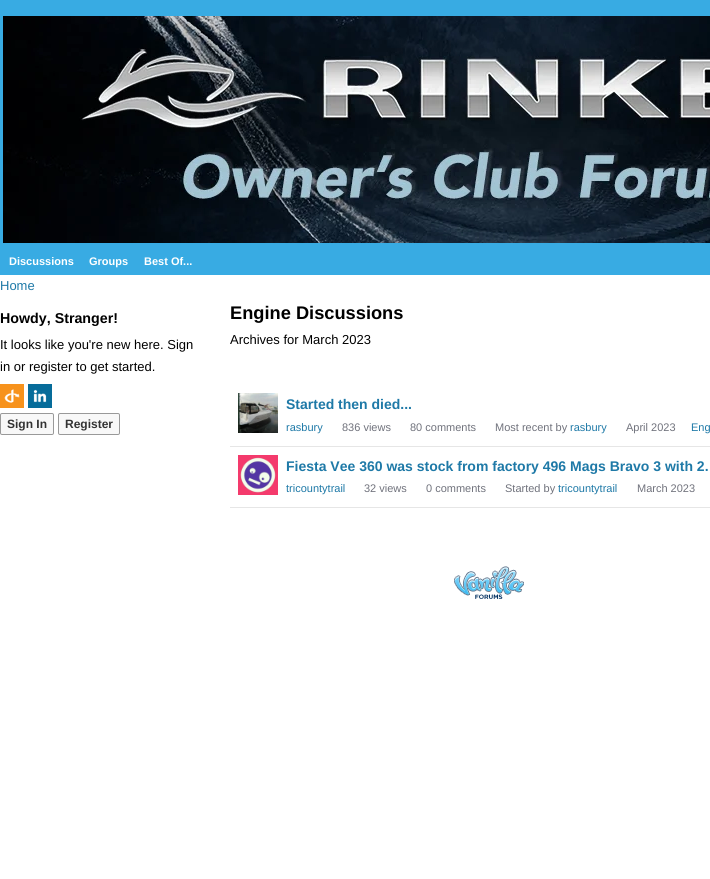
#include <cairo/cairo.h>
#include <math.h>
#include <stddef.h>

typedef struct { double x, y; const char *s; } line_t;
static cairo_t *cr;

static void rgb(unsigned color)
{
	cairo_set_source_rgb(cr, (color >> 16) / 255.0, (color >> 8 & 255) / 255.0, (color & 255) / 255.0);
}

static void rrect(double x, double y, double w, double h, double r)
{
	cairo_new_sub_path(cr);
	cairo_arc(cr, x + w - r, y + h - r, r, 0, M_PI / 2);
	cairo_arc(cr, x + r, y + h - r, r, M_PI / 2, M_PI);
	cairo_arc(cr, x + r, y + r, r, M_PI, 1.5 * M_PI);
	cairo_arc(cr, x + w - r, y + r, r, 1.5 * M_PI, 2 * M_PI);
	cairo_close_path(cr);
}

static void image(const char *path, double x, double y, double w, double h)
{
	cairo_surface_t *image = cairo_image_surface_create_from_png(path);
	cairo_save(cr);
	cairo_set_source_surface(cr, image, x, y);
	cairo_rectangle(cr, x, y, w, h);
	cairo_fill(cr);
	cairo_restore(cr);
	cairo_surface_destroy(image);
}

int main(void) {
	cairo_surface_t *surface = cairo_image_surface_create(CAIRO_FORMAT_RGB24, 710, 879);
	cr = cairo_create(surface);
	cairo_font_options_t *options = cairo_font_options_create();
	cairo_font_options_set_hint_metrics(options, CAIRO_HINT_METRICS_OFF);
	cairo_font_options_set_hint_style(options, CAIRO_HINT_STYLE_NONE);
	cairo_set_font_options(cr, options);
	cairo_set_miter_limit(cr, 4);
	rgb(0xffffff);
	cairo_paint(cr);
	rgb(0x38abe3);
	cairo_rectangle(cr, 0, 0, 710, 275);
	cairo_fill(cr);
	image("img/1.png", 3, 16, 707, 227);
	rgb(0xf7921c);
	cairo_rectangle(cr, 0, 384, 24, 24);
	cairo_fill(cr);
	image("img/2.png", 4, 389, 16, 14);
	rgb(0x066c9a);
	cairo_rectangle(cr, 28, 384, 24, 24);
	cairo_fill(cr);
	image("img/3.png", 33, 389, 14, 14);
	rgb(0xf8f8f8);
	rrect(0.5, 413.5, 53, 21, 1.5);
	cairo_fill_preserve(cr);
	rgb(0x999999);
	cairo_set_line_width(cr, 1);
	cairo_stroke(cr);
	rgb(0xf8f8f8);
	rrect(58.5, 413.5, 61, 21, 1.5);
	cairo_fill_preserve(cr);
	rgb(0x999999);
	cairo_stroke(cr);
	rgb(0xe6e6e6);
	cairo_rectangle(cr, 230, 446, 480, 1);
	cairo_fill(cr);
	image("img/4.png", 238, 393, 40, 40);
	cairo_rectangle(cr, 230, 507, 480, 1);
	cairo_fill(cr);
	image("img/5.png", 238, 455, 40, 40);
	image("img/6.png", 454, 566, 70, 33);
	cairo_select_font_face(cr, "Liberation Sans", CAIRO_FONT_SLANT_NORMAL, CAIRO_FONT_WEIGHT_BOLD);
	cairo_set_font_size(cr, 11);
	rgb(0xffffff);
	{
		static const line_t items[] = {
			{9, 265, "Discussions"},
			{89, 265, "Groups"},
			{144, 265, "Best Of..."},
		};
		for (size_t i = 0; i < sizeof items / sizeof *items; i++) {
			cairo_move_to(cr, items[i].x, items[i].y);
			cairo_show_text(cr, items[i].s);
		}
	}
	cairo_select_font_face(cr, "Liberation Sans", CAIRO_FONT_SLANT_NORMAL, CAIRO_FONT_WEIGHT_NORMAL);
	cairo_set_font_size(cr, 13);
	rgb(0x1e79a7);
	cairo_move_to(cr, 0, 290);
	cairo_show_text(cr, "Home");
	cairo_select_font_face(cr, "Liberation Sans", CAIRO_FONT_SLANT_NORMAL, CAIRO_FONT_WEIGHT_BOLD);
	cairo_set_font_size(cr, 14.25);
	rgb(0x000000);
	cairo_move_to(cr, 0, 323);
	cairo_show_text(cr, "Howdy, Stranger!");
	cairo_select_font_face(cr, "Liberation Sans", CAIRO_FONT_SLANT_NORMAL, CAIRO_FONT_WEIGHT_NORMAL);
	cairo_set_font_size(cr, 13);
	cairo_move_to(cr, 0, 349);
	cairo_show_text(cr, "It looks like you're new here. Sign");
	cairo_move_to(cr, 0, 371);
	cairo_show_text(cr, "in or register to get started.");
	cairo_select_font_face(cr, "Liberation Sans", CAIRO_FONT_SLANT_NORMAL, CAIRO_FONT_WEIGHT_BOLD);
	cairo_set_font_size(cr, 12);
	rgb(0x333333);
	cairo_move_to(cr, 7, 428);
	cairo_show_text(cr, "Sign In");
	cairo_move_to(cr, 65, 428);
	cairo_show_text(cr, "Register");
	cairo_set_font_size(cr, 18.25);
	rgb(0x000000);
	cairo_move_to(cr, 230, 319);
	cairo_show_text(cr, "Engine Discussions");
	cairo_select_font_face(cr, "Liberation Sans", CAIRO_FONT_SLANT_NORMAL, CAIRO_FONT_WEIGHT_NORMAL);
	cairo_set_font_size(cr, 13);
	cairo_move_to(cr, 230, 344);
	cairo_show_text(cr, "Archives for March 2023");
	cairo_select_font_face(cr, "Liberation Sans", CAIRO_FONT_SLANT_NORMAL, CAIRO_FONT_WEIGHT_BOLD);
	cairo_set_font_size(cr, 14);
	rgb(0x1e79a7);
	cairo_move_to(cr, 286, 409);
	cairo_show_text(cr, "Started then died...");
	cairo_select_font_face(cr, "Liberation Sans", CAIRO_FONT_SLANT_NORMAL, CAIRO_FONT_WEIGHT_NORMAL);
	cairo_set_font_size(cr, 11);
	cairo_move_to(cr, 286, 431);
	cairo_show_text(cr, "rasbury");
	rgb(0x70727c);
	{
		static const line_t items[] = {
			{342, 431, "836 views"},
			{410, 431, "80 comments"},
			{495, 431, "Most recent by"},
		};
		for (size_t i = 0; i < sizeof items / sizeof *items; i++) {
			cairo_move_to(cr, items[i].x, items[i].y);
			cairo_show_text(cr, items[i].s);
		}
	}
	rgb(0x1e79a7);
	cairo_move_to(cr, 570, 431);
	cairo_show_text(cr, "rasbury");
	rgb(0x70727c);
	cairo_move_to(cr, 626, 431);
	cairo_show_text(cr, "April 2023");
	rgb(0x1e79a7);
	cairo_move_to(cr, 691, 431);
	cairo_show_text(cr, "Eng");
	cairo_select_font_face(cr, "Liberation Sans", CAIRO_FONT_SLANT_NORMAL, CAIRO_FONT_WEIGHT_BOLD);
	cairo_set_font_size(cr, 14);
	cairo_move_to(cr, 286, 471);
	cairo_show_text(cr, "Fiesta Vee 360 was stock from factory 496 Mags Bravo 3 with 2.");
	cairo_select_font_face(cr, "Liberation Sans", CAIRO_FONT_SLANT_NORMAL, CAIRO_FONT_WEIGHT_NORMAL);
	cairo_set_font_size(cr, 11);
	cairo_move_to(cr, 286, 492);
	cairo_show_text(cr, "tricountytrail");
	rgb(0x70727c);
	{
		static const line_t items[] = {
			{364, 492, "32 views"},
			{426, 492, "0 comments"},
			{505, 492, "Started by"},
		};
		for (size_t i = 0; i < sizeof items / sizeof *items; i++) {
			cairo_move_to(cr, items[i].x, items[i].y);
			cairo_show_text(cr, items[i].s);
		}
	}
	rgb(0x1e79a7);
	cairo_move_to(cr, 558, 492);
	cairo_show_text(cr, "tricountytrail");
	rgb(0x70727c);
	cairo_move_to(cr, 637, 492);
	cairo_show_text(cr, "March 2023");
	cairo_surface_write_to_png(surface, "page.png");
	cairo_font_options_destroy(options);
	cairo_destroy(cr);
	cairo_surface_destroy(surface);
	return 0;
}
